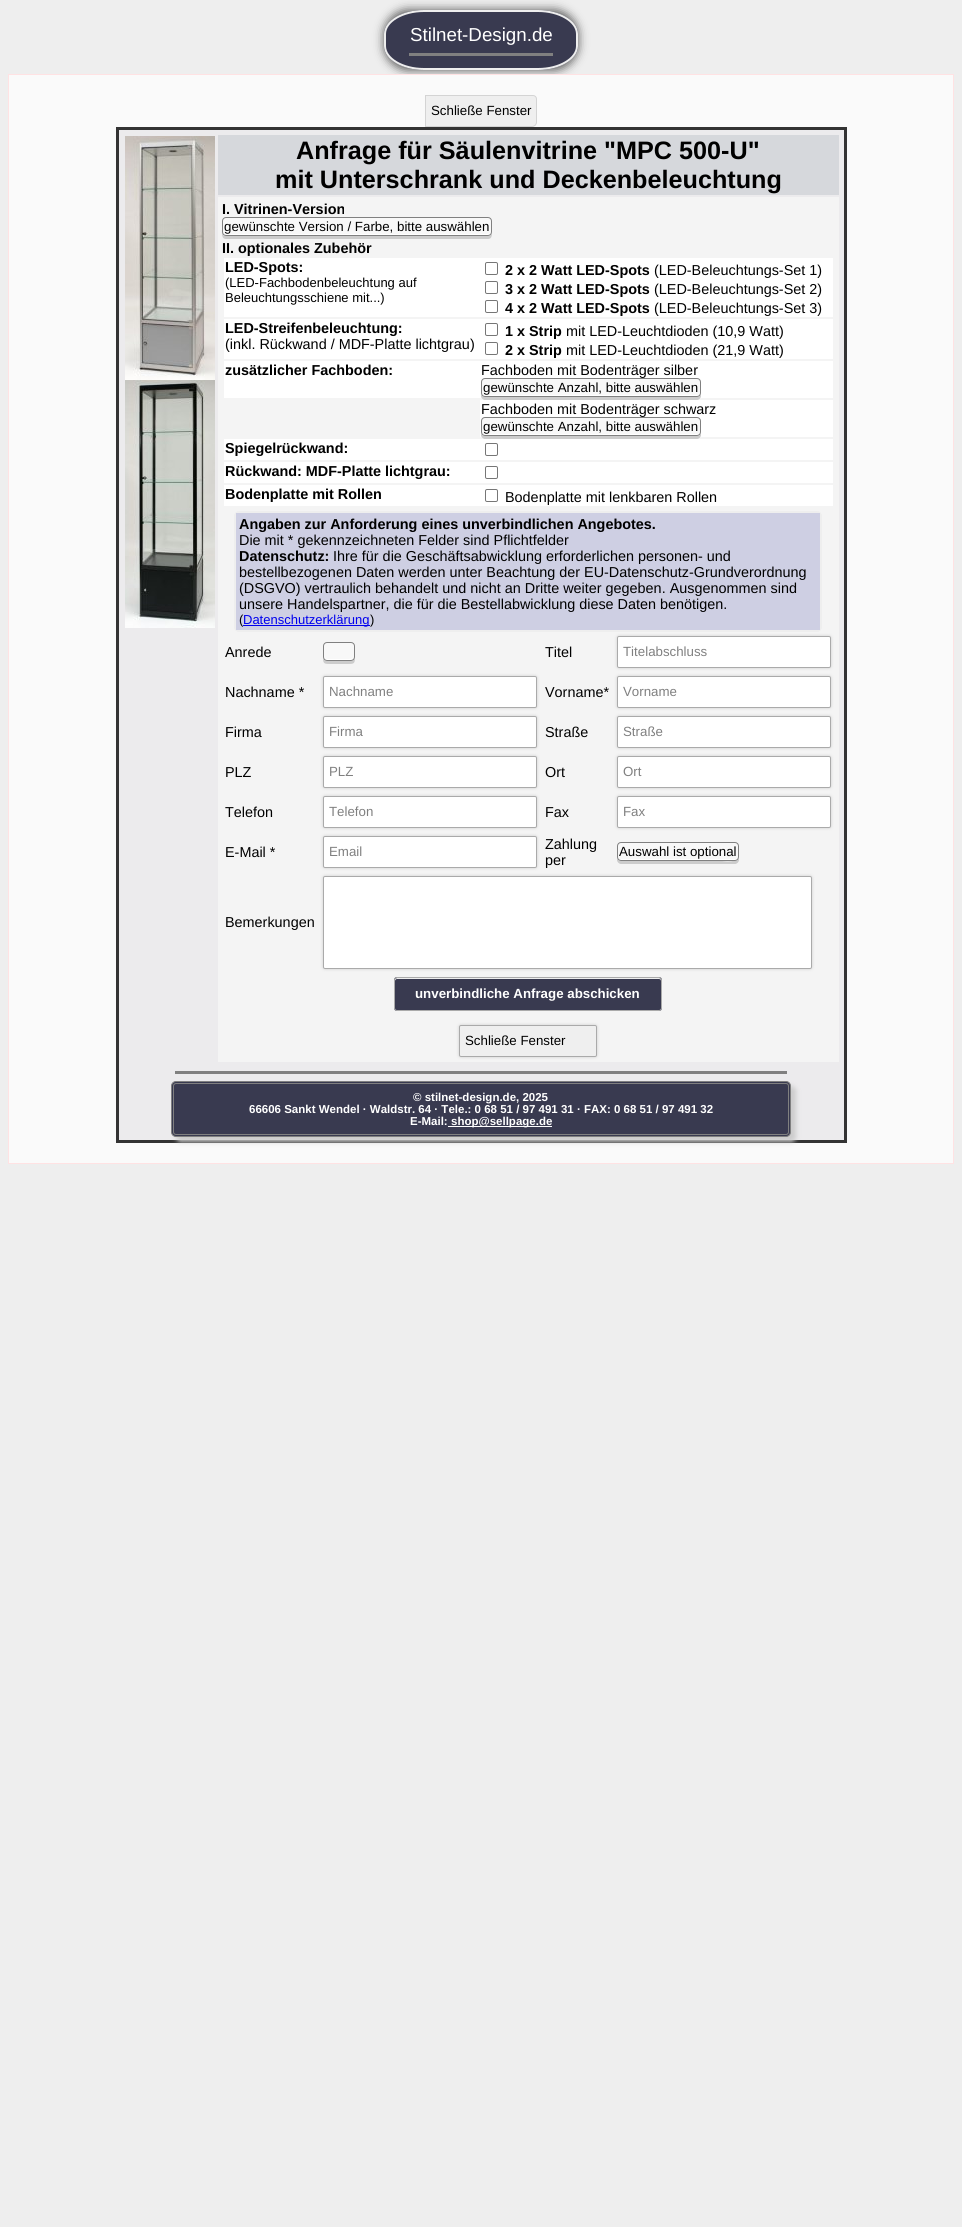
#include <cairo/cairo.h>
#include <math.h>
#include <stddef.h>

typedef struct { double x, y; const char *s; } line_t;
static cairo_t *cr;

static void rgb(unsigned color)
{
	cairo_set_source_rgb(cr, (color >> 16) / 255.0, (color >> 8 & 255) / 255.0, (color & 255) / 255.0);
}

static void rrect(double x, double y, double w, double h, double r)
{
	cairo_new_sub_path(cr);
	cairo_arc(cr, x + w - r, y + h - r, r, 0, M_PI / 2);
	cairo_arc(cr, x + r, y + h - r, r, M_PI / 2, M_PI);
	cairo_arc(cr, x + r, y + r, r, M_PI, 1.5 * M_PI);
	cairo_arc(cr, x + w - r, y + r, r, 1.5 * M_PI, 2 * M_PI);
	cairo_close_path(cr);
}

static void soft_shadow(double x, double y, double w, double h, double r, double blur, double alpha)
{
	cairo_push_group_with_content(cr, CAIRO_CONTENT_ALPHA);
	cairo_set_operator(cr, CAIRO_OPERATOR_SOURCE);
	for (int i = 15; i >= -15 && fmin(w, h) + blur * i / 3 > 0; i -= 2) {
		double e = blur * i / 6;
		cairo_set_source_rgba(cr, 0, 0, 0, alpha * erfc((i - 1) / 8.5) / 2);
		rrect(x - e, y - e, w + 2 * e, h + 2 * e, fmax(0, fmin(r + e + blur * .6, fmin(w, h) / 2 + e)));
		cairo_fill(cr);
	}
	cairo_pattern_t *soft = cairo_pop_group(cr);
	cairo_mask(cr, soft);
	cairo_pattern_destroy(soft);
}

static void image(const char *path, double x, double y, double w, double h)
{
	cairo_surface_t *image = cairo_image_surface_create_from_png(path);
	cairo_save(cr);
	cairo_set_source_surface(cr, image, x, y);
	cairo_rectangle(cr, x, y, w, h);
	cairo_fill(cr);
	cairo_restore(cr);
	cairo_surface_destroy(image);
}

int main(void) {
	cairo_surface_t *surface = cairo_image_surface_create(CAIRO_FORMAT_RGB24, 962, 2227);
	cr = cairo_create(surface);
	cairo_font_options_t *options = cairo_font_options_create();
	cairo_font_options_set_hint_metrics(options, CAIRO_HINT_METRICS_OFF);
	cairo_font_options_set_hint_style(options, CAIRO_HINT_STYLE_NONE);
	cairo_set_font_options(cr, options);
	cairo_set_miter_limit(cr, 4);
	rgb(0xeeeeee);
	cairo_paint(cr);
	rgb(0x555555);
	soft_shadow(384, 10, 194, 60, 24, 5, 1);
	rgb(0x393a50);
	cairo_new_path(cr);
	cairo_move_to(cr, 424, 10);
	cairo_line_to(cr, 538, 10);
	cairo_curve_to(cr, 560, 10, 578, 21, 578, 34);
	cairo_line_to(cr, 578, 46);
	cairo_curve_to(cr, 578, 59, 560, 70, 538, 70);
	cairo_line_to(cr, 424, 70);
	cairo_curve_to(cr, 402, 70, 384, 59, 384, 46);
	cairo_line_to(cr, 384, 34);
	cairo_curve_to(cr, 384, 21, 402, 10, 424, 10);
	cairo_close_path(cr);
	cairo_fill(cr);
	cairo_new_path(cr);
	cairo_move_to(cr, 424, 11);
	cairo_line_to(cr, 538, 11);
	cairo_curve_to(cr, 559.5, 11, 577, 21.5, 577, 34);
	cairo_line_to(cr, 577, 46);
	cairo_curve_to(cr, 577, 58.5, 559.5, 69, 538, 69);
	cairo_line_to(cr, 424, 69);
	cairo_curve_to(cr, 402.5, 69, 385, 58.5, 385, 46);
	cairo_line_to(cr, 385, 34);
	cairo_curve_to(cr, 385, 21.5, 402.5, 11, 424, 11);
	cairo_close_path(cr);
	rgb(0xeeeeee);
	cairo_stroke(cr);
	rgb(0x808080);
	cairo_rectangle(cr, 409, 53, 144, 3);
	cairo_fill(cr);
	rgb(0xfafafa);
	cairo_rectangle(cr, 8.5, 74.5, 945, 1089);
	cairo_fill_preserve(cr);
	rgb(0xffe2e3);
	cairo_set_line_width(cr, 1);
	cairo_stroke(cr);
	rgb(0xefefef);
	cairo_new_path(cr);
	cairo_move_to(cr, 425.5, 95.5);
	cairo_line_to(cr, 533, 95.5);
	cairo_curve_to(cr, 535, 95.5, 536.5, 97, 536.5, 99);
	cairo_line_to(cr, 536.5, 122);
	cairo_curve_to(cr, 536.5, 124.5, 534.5, 126.5, 532, 126.5);
	cairo_line_to(cr, 425.5, 126.5);
	cairo_close_path(cr);
	cairo_fill_preserve(cr);
	rgb(0xd4d4d4);
	cairo_stroke(cr);
	cairo_rectangle(cr, 117, 128, 729, 1014);
	rgb(0x333333);
	cairo_set_line_width(cr, 2);
	cairo_stroke(cr);
	rgb(0xecebed);
	cairo_rectangle(cr, 118.5, 129.5, 726, 1011);
	cairo_fill_preserve(cr);
	rgb(0x333333);
	cairo_set_line_width(cr, 1);
	cairo_stroke(cr);
	image("img/1.png", 125, 136, 90, 244);
	image("img/2.png", 125, 380, 90, 248);
	rgb(0xd6d8dc);
	cairo_rectangle(cr, 218, 135, 621, 60);
	cairo_fill(cr);
	rgb(0xf4f4f4);
	cairo_rectangle(cr, 218, 197, 621, 865);
	cairo_fill(cr);
	rgb(0xcccccc);
	cairo_new_path(cr);
	cairo_move_to(cr, 222, 232);
	cairo_curve_to(cr, 222, 235, 222, 239, 226, 239);
	cairo_line_to(cr, 488, 239);
	cairo_curve_to(cr, 492, 239, 492, 235, 492, 232);
	cairo_curve_to(cr, 492, 234, 490, 236, 488, 236);
	cairo_line_to(cr, 224, 236);
	cairo_line_to(cr, 223, 234);
	cairo_close_path(cr);
	cairo_fill(cr);
	rgb(0xf8f8f8);
	rrect(222, 217, 270, 19, 4);
	cairo_fill(cr);
	rgb(0xffffff);
	cairo_new_path(cr);
	cairo_move_to(cr, 223, 231);
	cairo_curve_to(cr, 223, 233, 224, 235, 226, 235);
	cairo_line_to(cr, 488, 235);
	cairo_curve_to(cr, 490, 235, 491, 233, 491, 231);
	cairo_curve_to(cr, 491, 233, 490, 234, 488, 234);
	cairo_line_to(cr, 226, 234);
	cairo_curve_to(cr, 224, 234, 223, 233, 223, 231);
	cairo_close_path(cr);
	cairo_fill(cr);
	rrect(222.5, 217.5, 269, 18, 3.5);
	rgb(0x808080);
	cairo_stroke(cr);
	rgb(0xffffff);
	cairo_rectangle(cr, 224, 258, 609, 59);
	cairo_fill(cr);
	rrect(485.5, 262.5, 12, 12, 1.5);
	rgb(0x767676);
	cairo_stroke(cr);
	rrect(485.5, 281.5, 12, 12, 1.5);
	cairo_stroke(cr);
	rrect(485.5, 300.5, 12, 12, 1.5);
	cairo_stroke(cr);
	rgb(0xffffff);
	cairo_rectangle(cr, 224, 319, 609, 40);
	cairo_fill(cr);
	rrect(485.5, 323.5, 12, 12, 1.5);
	rgb(0x767676);
	cairo_stroke(cr);
	rrect(485.5, 342.5, 12, 12, 1.5);
	cairo_stroke(cr);
	rgb(0xffffff);
	cairo_rectangle(cr, 224, 361, 609, 37);
	cairo_fill(cr);
	rgb(0xcccccc);
	cairo_new_path(cr);
	cairo_move_to(cr, 481, 393);
	cairo_line_to(cr, 481, 396);
	cairo_curve_to(cr, 481, 398, 483, 400, 485, 400);
	cairo_line_to(cr, 697, 400);
	cairo_curve_to(cr, 699, 400, 701, 398, 701, 396);
	cairo_line_to(cr, 701, 393);
	cairo_curve_to(cr, 701, 395, 699, 397, 697, 397);
	cairo_line_to(cr, 485, 397);
	cairo_curve_to(cr, 483, 397, 481, 395, 481, 393);
	cairo_close_path(cr);
	cairo_fill(cr);
	rgb(0xf8f8f8);
	rrect(481, 378, 220, 19, 4);
	cairo_fill(cr);
	rgb(0xffffff);
	cairo_new_path(cr);
	cairo_move_to(cr, 482, 392);
	cairo_line_to(cr, 482, 393);
	cairo_curve_to(cr, 482, 395, 483, 396, 485, 396);
	cairo_line_to(cr, 697, 396);
	cairo_curve_to(cr, 699, 396, 700, 395, 700, 393);
	cairo_line_to(cr, 700, 392);
	cairo_curve_to(cr, 700, 394, 699, 395, 697, 395);
	cairo_line_to(cr, 485, 395);
	cairo_curve_to(cr, 483, 395, 482, 394, 482, 392);
	cairo_close_path(cr);
	cairo_fill(cr);
	rrect(481.5, 378.5, 219, 18, 3.5);
	rgb(0x808080);
	cairo_stroke(cr);
	rgb(0xffffff);
	cairo_rectangle(cr, 480, 400, 353, 37);
	cairo_fill(cr);
	rgb(0xcccccc);
	cairo_new_path(cr);
	cairo_move_to(cr, 481, 432);
	cairo_line_to(cr, 481, 435);
	cairo_curve_to(cr, 481, 437, 483, 439, 485, 439);
	cairo_line_to(cr, 697, 439);
	cairo_curve_to(cr, 699, 439, 701, 437, 701, 435);
	cairo_line_to(cr, 701, 432);
	cairo_curve_to(cr, 701, 434, 699, 436, 697, 436);
	cairo_line_to(cr, 485, 436);
	cairo_curve_to(cr, 483, 436, 481, 434, 481, 432);
	cairo_close_path(cr);
	cairo_fill(cr);
	rgb(0xf8f8f8);
	rrect(481, 417, 220, 19, 4);
	cairo_fill(cr);
	rgb(0xffffff);
	cairo_new_path(cr);
	cairo_move_to(cr, 482, 431);
	cairo_line_to(cr, 482, 432);
	cairo_curve_to(cr, 482, 434, 483, 435, 485, 435);
	cairo_line_to(cr, 697, 435);
	cairo_curve_to(cr, 699, 435, 700, 434, 700, 432);
	cairo_line_to(cr, 700, 431);
	cairo_curve_to(cr, 700, 433, 699, 434, 697, 434);
	cairo_line_to(cr, 485, 434);
	cairo_curve_to(cr, 483, 434, 482, 433, 482, 431);
	cairo_close_path(cr);
	cairo_fill(cr);
	rrect(481.5, 417.5, 219, 18, 3.5);
	rgb(0x808080);
	cairo_stroke(cr);
	rgb(0xffffff);
	cairo_rectangle(cr, 224, 439, 609, 21);
	cairo_fill(cr);
	rrect(485.5, 443.5, 12, 12, 1.5);
	rgb(0x767676);
	cairo_stroke(cr);
	rgb(0xffffff);
	cairo_rectangle(cr, 224, 462, 609, 21);
	cairo_fill(cr);
	rrect(485.5, 466.5, 12, 12, 1.5);
	rgb(0x767676);
	cairo_stroke(cr);
	rgb(0xffffff);
	cairo_rectangle(cr, 224, 485, 609, 21);
	cairo_fill(cr);
	rrect(485.5, 489.5, 12, 12, 1.5);
	rgb(0x767676);
	cairo_stroke(cr);
	rrect(235, 512, 586, 119, 4);
	rgb(0xeeeeee);
	cairo_set_line_width(cr, 2);
	cairo_stroke(cr);
	rgb(0xcecfe3);
	cairo_rectangle(cr, 236, 513, 584, 117);
	cairo_fill(cr);
	rgb(0xcccccc);
	cairo_new_path(cr);
	cairo_move_to(cr, 323, 657);
	cairo_curve_to(cr, 323, 664, 324, 664, 331, 664);
	cairo_line_to(cr, 347, 664);
	cairo_curve_to(cr, 354, 664, 355, 664, 355, 657);
	cairo_curve_to(cr, 355, 659, 353, 661, 351, 661);
	cairo_line_to(cr, 327, 661);
	cairo_curve_to(cr, 325, 661, 323, 659, 323, 657);
	cairo_close_path(cr);
	cairo_fill(cr);
	rgb(0xf8f8f8);
	rrect(323, 642, 32, 19, 4);
	cairo_fill(cr);
	rgb(0xffffff);
	cairo_set_fill_rule(cr, CAIRO_FILL_RULE_EVEN_ODD);
	cairo_new_path(cr);
	cairo_move_to(cr, 353.5, 644.5);
	cairo_line_to(cr, 354, 649);
	cairo_curve_to(cr, 354, 647.5, 354.5, 646, 353.5, 644.5);
	cairo_close_path(cr);
	cairo_move_to(cr, 354, 656.5);
	cairo_curve_to(cr, 353.5, 658.5, 352, 659, 347, 659);
	cairo_line_to(cr, 327, 659);
	cairo_curve_to(cr, 325, 659, 324, 657.5, 324, 655.5);
	cairo_curve_to(cr, 324, 660.5, 326.5, 660, 331, 660);
	cairo_line_to(cr, 347, 660);
	cairo_curve_to(cr, 350, 660, 354, 660.5, 354, 656.5);
	cairo_close_path(cr);
	cairo_fill(cr);
	rrect(323.5, 642.5, 31, 18, 3.5);
	rgb(0x808080);
	cairo_set_line_width(cr, 1);
	cairo_stroke(cr);
	rgb(0xcccccc);
	soft_shadow(617, 636, 214, 32, 2, 1.5, 1);
	rgb(0xffffff);
	rrect(617.5, 636.5, 213, 31, 1.5);
	cairo_fill_preserve(cr);
	rgb(0xaaaaaa);
	cairo_stroke(cr);
	rgb(0xcccccc);
	soft_shadow(323, 676, 214, 32, 2, 1.5, 1);
	rgb(0xffffff);
	rrect(323.5, 676.5, 213, 31, 1.5);
	cairo_fill_preserve(cr);
	rgb(0xaaaaaa);
	cairo_stroke(cr);
	rgb(0xcccccc);
	soft_shadow(617, 676, 214, 32, 2, 1.5, 1);
	rgb(0xffffff);
	rrect(617.5, 676.5, 213, 31, 1.5);
	cairo_fill_preserve(cr);
	rgb(0xaaaaaa);
	cairo_stroke(cr);
	rgb(0xcccccc);
	soft_shadow(323, 716, 214, 32, 2, 1.5, 1);
	rgb(0xffffff);
	rrect(323.5, 716.5, 213, 31, 1.5);
	cairo_fill_preserve(cr);
	rgb(0xaaaaaa);
	cairo_stroke(cr);
	rgb(0xcccccc);
	soft_shadow(617, 716, 214, 32, 2, 1.5, 1);
	rgb(0xffffff);
	rrect(617.5, 716.5, 213, 31, 1.5);
	cairo_fill_preserve(cr);
	rgb(0xaaaaaa);
	cairo_stroke(cr);
	rgb(0xcccccc);
	soft_shadow(323, 756, 214, 32, 2, 1.5, 1);
	rgb(0xffffff);
	rrect(323.5, 756.5, 213, 31, 1.5);
	cairo_fill_preserve(cr);
	rgb(0xaaaaaa);
	cairo_stroke(cr);
	rgb(0xcccccc);
	soft_shadow(617, 756, 214, 32, 2, 1.5, 1);
	rgb(0xffffff);
	rrect(617.5, 756.5, 213, 31, 1.5);
	cairo_fill_preserve(cr);
	rgb(0xaaaaaa);
	cairo_stroke(cr);
	rgb(0xcccccc);
	soft_shadow(323, 796, 214, 32, 2, 1.5, 1);
	rgb(0xffffff);
	rrect(323.5, 796.5, 213, 31, 1.5);
	cairo_fill_preserve(cr);
	rgb(0xaaaaaa);
	cairo_stroke(cr);
	rgb(0xcccccc);
	soft_shadow(617, 796, 214, 32, 2, 1.5, 1);
	rgb(0xffffff);
	rrect(617.5, 796.5, 213, 31, 1.5);
	cairo_fill_preserve(cr);
	rgb(0xaaaaaa);
	cairo_stroke(cr);
	rgb(0xcccccc);
	soft_shadow(323, 836, 214, 32, 2, 1.5, 1);
	rgb(0xffffff);
	rrect(323.5, 836.5, 213, 31, 1.5);
	cairo_fill_preserve(cr);
	rgb(0xaaaaaa);
	cairo_stroke(cr);
	rgb(0xcccccc);
	cairo_set_fill_rule(cr, CAIRO_FILL_RULE_WINDING);
	cairo_new_path(cr);
	cairo_move_to(cr, 617, 857);
	cairo_line_to(cr, 617, 860);
	cairo_curve_to(cr, 617, 862, 619, 864, 621, 864);
	cairo_line_to(cr, 735, 864);
	cairo_curve_to(cr, 737, 864, 739, 862, 739, 860);
	cairo_line_to(cr, 739, 857);
	cairo_curve_to(cr, 739, 859, 737, 861, 735, 861);
	cairo_line_to(cr, 621, 861);
	cairo_curve_to(cr, 619, 861, 617, 859, 617, 857);
	cairo_close_path(cr);
	cairo_fill(cr);
	rgb(0xf8f8f8);
	rrect(617, 842, 122, 19, 4);
	cairo_fill(cr);
	rgb(0xffffff);
	cairo_new_path(cr);
	cairo_move_to(cr, 618, 856);
	cairo_curve_to(cr, 618, 858, 619, 860, 621, 860);
	cairo_line_to(cr, 716, 860);
	cairo_curve_to(cr, 717, 860, 738, 865, 738, 856);
	cairo_curve_to(cr, 738, 858, 737, 859, 735, 859);
	cairo_line_to(cr, 621, 859);
	cairo_curve_to(cr, 619, 859, 618, 858, 618, 856);
	cairo_close_path(cr);
	cairo_fill(cr);
	rrect(617.5, 842.5, 121, 18, 3.5);
	rgb(0x808080);
	cairo_stroke(cr);
	rgb(0xcccccc);
	soft_shadow(323, 876, 489, 93, 2, 1.5, 1);
	rgb(0xffffff);
	rrect(323.5, 876.5, 488, 92, 1.5);
	cairo_fill_preserve(cr);
	rgb(0xaaaaaa);
	cairo_stroke(cr);
	rgb(0x393a50);
	rrect(394, 977, 268, 34, 3);
	cairo_fill(cr);
	rgb(0xeeeeee);
	cairo_new_path(cr);
	cairo_move_to(cr, 397, 979);
	cairo_line_to(cr, 659, 979);
	cairo_curve_to(cr, 660, 979, 661, 980, 661, 981);
	cairo_curve_to(cr, 661, 980, 661, 978, 659, 978);
	cairo_line_to(cr, 397, 978);
	cairo_line_to(cr, 395, 979);
	cairo_line_to(cr, 395, 981);
	cairo_curve_to(cr, 395, 980, 396, 979, 397, 979);
	cairo_close_path(cr);
	cairo_fill(cr);
	rrect(394.5, 977.5, 267, 33, 2.5);
	rgb(0xaaaaaa);
	cairo_stroke(cr);
	rgb(0xcccccc);
	soft_shadow(459, 1025, 138, 32, 2, 1.5, 1);
	rgb(0xefefef);
	rrect(459.5, 1025.5, 137, 31, 1.5);
	cairo_fill_preserve(cr);
	rgb(0xaaaaaa);
	cairo_stroke(cr);
	rgb(0x808080);
	cairo_rectangle(cr, 175, 1071, 612, 3);
	cairo_fill(cr);
	rgb(0xcccccc);
	soft_shadow(176, 1086, 620, 56, 5, 2.5, 1);
	rgb(0x393a50);
	rrect(171.5, 1081.5, 619, 55, 4.5);
	cairo_fill_preserve(cr);
	rgb(0x808080);
	cairo_stroke(cr);
	rrect(173.5, 1083.5, 615, 51, 2.5);
	cairo_stroke(cr);
	rgb(0xffffff);
	cairo_rectangle(cr, 448, 1126, 104, 1);
	cairo_fill(cr);
	cairo_select_font_face(cr, "Liberation Sans", CAIRO_FONT_SLANT_NORMAL, CAIRO_FONT_WEIGHT_NORMAL);
	cairo_set_font_size(cr, 18.75);
	cairo_move_to(cr, 410, 41);
	cairo_show_text(cr, "Stilnet-Design.de");
	cairo_set_font_size(cr, 13.3);
	rgb(0x000000);
	cairo_move_to(cr, 431, 115);
	cairo_show_text(cr, "Schließe Fenster");
	cairo_select_font_face(cr, "Liberation Sans", CAIRO_FONT_SLANT_NORMAL, CAIRO_FONT_WEIGHT_BOLD);
	cairo_set_font_size(cr, 25.2);
	cairo_move_to(cr, 296, 159);
	cairo_show_text(cr, "Anfrage für Säulenvitrine \"MPC 500-U\"");
	cairo_move_to(cr, 275, 188);
	cairo_show_text(cr, "mit Unterschrank und Deckenbeleuchtung");
	cairo_set_font_size(cr, 14.4);
	cairo_move_to(cr, 222, 214);
	cairo_show_text(cr, "I. Vitrinen-Version");
	cairo_select_font_face(cr, "Liberation Sans", CAIRO_FONT_SLANT_NORMAL, CAIRO_FONT_WEIGHT_NORMAL);
	cairo_set_font_size(cr, 13.3);
	cairo_move_to(cr, 224, 231);
	cairo_show_text(cr, "gewünschte Version / Farbe, bitte auswählen");
	cairo_select_font_face(cr, "Liberation Sans", CAIRO_FONT_SLANT_NORMAL, CAIRO_FONT_WEIGHT_BOLD);
	cairo_set_font_size(cr, 14.4);
	cairo_move_to(cr, 222, 253);
	cairo_show_text(cr, "II. optionales Zubehör");
	cairo_move_to(cr, 225, 272);
	cairo_show_text(cr, "LED-Spots:");
	cairo_select_font_face(cr, "Liberation Sans", CAIRO_FONT_SLANT_NORMAL, CAIRO_FONT_WEIGHT_NORMAL);
	cairo_set_font_size(cr, 13);
	cairo_move_to(cr, 225, 287);
	cairo_show_text(cr, "(LED-Fachbodenbeleuchtung auf");
	cairo_move_to(cr, 225, 302);
	cairo_show_text(cr, "Beleuchtungsschiene mit...)");
	cairo_select_font_face(cr, "Liberation Sans", CAIRO_FONT_SLANT_NORMAL, CAIRO_FONT_WEIGHT_BOLD);
	cairo_set_font_size(cr, 14.4);
	cairo_move_to(cr, 505, 275);
	cairo_show_text(cr, "2 x 2 Watt LED-Spots");
	cairo_select_font_face(cr, "Liberation Sans", CAIRO_FONT_SLANT_NORMAL, CAIRO_FONT_WEIGHT_NORMAL);
	cairo_move_to(cr, 654, 275);
	cairo_show_text(cr, "(LED-Beleuchtungs-Set 1)");
	cairo_select_font_face(cr, "Liberation Sans", CAIRO_FONT_SLANT_NORMAL, CAIRO_FONT_WEIGHT_BOLD);
	cairo_move_to(cr, 505, 294);
	cairo_show_text(cr, "3 x 2 Watt LED-Spots");
	cairo_select_font_face(cr, "Liberation Sans", CAIRO_FONT_SLANT_NORMAL, CAIRO_FONT_WEIGHT_NORMAL);
	cairo_move_to(cr, 654, 294);
	cairo_show_text(cr, "(LED-Beleuchtungs-Set 2)");
	cairo_select_font_face(cr, "Liberation Sans", CAIRO_FONT_SLANT_NORMAL, CAIRO_FONT_WEIGHT_BOLD);
	cairo_move_to(cr, 505, 313);
	cairo_show_text(cr, "4 x 2 Watt LED-Spots");
	cairo_select_font_face(cr, "Liberation Sans", CAIRO_FONT_SLANT_NORMAL, CAIRO_FONT_WEIGHT_NORMAL);
	cairo_move_to(cr, 654, 313);
	cairo_show_text(cr, "(LED-Beleuchtungs-Set 3)");
	cairo_select_font_face(cr, "Liberation Sans", CAIRO_FONT_SLANT_NORMAL, CAIRO_FONT_WEIGHT_BOLD);
	cairo_move_to(cr, 225, 333);
	cairo_show_text(cr, "LED-Streifenbeleuchtung:");
	cairo_select_font_face(cr, "Liberation Sans", CAIRO_FONT_SLANT_NORMAL, CAIRO_FONT_WEIGHT_NORMAL);
	cairo_move_to(cr, 225, 349);
	cairo_show_text(cr, "(inkl. Rückwand / MDF-Platte lichtgrau)");
	cairo_select_font_face(cr, "Liberation Sans", CAIRO_FONT_SLANT_NORMAL, CAIRO_FONT_WEIGHT_BOLD);
	cairo_move_to(cr, 505, 336);
	cairo_show_text(cr, "1 x Strip");
	cairo_select_font_face(cr, "Liberation Sans", CAIRO_FONT_SLANT_NORMAL, CAIRO_FONT_WEIGHT_NORMAL);
	cairo_move_to(cr, 566, 336);
	cairo_show_text(cr, "mit LED-Leuchtdioden (10,9 Watt)");
	cairo_select_font_face(cr, "Liberation Sans", CAIRO_FONT_SLANT_NORMAL, CAIRO_FONT_WEIGHT_BOLD);
	cairo_move_to(cr, 505, 355);
	cairo_show_text(cr, "2 x Strip");
	cairo_select_font_face(cr, "Liberation Sans", CAIRO_FONT_SLANT_NORMAL, CAIRO_FONT_WEIGHT_NORMAL);
	cairo_move_to(cr, 566, 355);
	cairo_show_text(cr, "mit LED-Leuchtdioden (21,9 Watt)");
	cairo_select_font_face(cr, "Liberation Sans", CAIRO_FONT_SLANT_NORMAL, CAIRO_FONT_WEIGHT_BOLD);
	cairo_move_to(cr, 225, 375);
	cairo_show_text(cr, "zusätzlicher Fachboden:");
	cairo_select_font_face(cr, "Liberation Sans", CAIRO_FONT_SLANT_NORMAL, CAIRO_FONT_WEIGHT_NORMAL);
	cairo_move_to(cr, 481, 375);
	cairo_show_text(cr, "Fachboden mit Bodenträger silber");
	cairo_set_font_size(cr, 13.3);
	cairo_move_to(cr, 483, 392);
	cairo_show_text(cr, "gewünschte Anzahl, bitte auswählen");
	cairo_set_font_size(cr, 14.4);
	cairo_move_to(cr, 481, 414);
	cairo_show_text(cr, "Fachboden mit Bodenträger schwarz");
	cairo_set_font_size(cr, 13.3);
	cairo_move_to(cr, 483, 431);
	cairo_show_text(cr, "gewünschte Anzahl, bitte auswählen");
	cairo_select_font_face(cr, "Liberation Sans", CAIRO_FONT_SLANT_NORMAL, CAIRO_FONT_WEIGHT_BOLD);
	cairo_set_font_size(cr, 14.4);
	{
		static const line_t items[] = {
			{225, 453, "Spiegelrückwand:"},
			{225, 476, "Rückwand: MDF-Platte lichtgrau:"},
			{225, 499, "Bodenplatte mit Rollen"},
		};
		for (size_t i = 0; i < sizeof items / sizeof *items; i++) {
			cairo_move_to(cr, items[i].x, items[i].y);
			cairo_show_text(cr, items[i].s);
		}
	}
	cairo_select_font_face(cr, "Liberation Sans", CAIRO_FONT_SLANT_NORMAL, CAIRO_FONT_WEIGHT_NORMAL);
	cairo_move_to(cr, 505, 502);
	cairo_show_text(cr, "Bodenplatte mit lenkbaren Rollen");
	cairo_select_font_face(cr, "Liberation Sans", CAIRO_FONT_SLANT_NORMAL, CAIRO_FONT_WEIGHT_BOLD);
	cairo_move_to(cr, 239, 529);
	cairo_show_text(cr, "Angaben zur Anforderung eines unverbindlichen Angebotes.");
	cairo_select_font_face(cr, "Liberation Sans", CAIRO_FONT_SLANT_NORMAL, CAIRO_FONT_WEIGHT_NORMAL);
	cairo_move_to(cr, 239, 545);
	cairo_show_text(cr, "Die mit * gekennzeichneten Felder sind Pflichtfelder");
	cairo_select_font_face(cr, "Liberation Sans", CAIRO_FONT_SLANT_NORMAL, CAIRO_FONT_WEIGHT_BOLD);
	cairo_move_to(cr, 239, 561);
	cairo_show_text(cr, "Datenschutz:");
	cairo_select_font_face(cr, "Liberation Sans", CAIRO_FONT_SLANT_NORMAL, CAIRO_FONT_WEIGHT_NORMAL);
	{
		static const line_t items[] = {
			{333, 561, "Ihre für die Geschäftsabwicklung erforderlichen personen- und"},
			{239, 577, "bestellbezogenen Daten werden unter Beachtung der EU-Datenschutz-Grundverordnung"},
			{239, 593, "(DSGVO) vertraulich behandelt und nicht an Dritte weiter gegeben. Ausgenommen sind"},
			{239, 609, "unsere Handelspartner, die für die Bestellabwicklung diese Daten benötigen."},
		};
		for (size_t i = 0; i < sizeof items / sizeof *items; i++) {
			cairo_move_to(cr, items[i].x, items[i].y);
			cairo_show_text(cr, items[i].s);
		}
	}
	cairo_set_font_size(cr, 13);
	cairo_move_to(cr, 239, 624);
	cairo_show_text(cr, "(");
	rgb(0x0000ee);
	cairo_rectangle(cr, 243, 625, 127, 1);
	cairo_fill(cr);
	cairo_move_to(cr, 243, 624);
	cairo_show_text(cr, "Datenschutzerklärung");
	rgb(0x000000);
	cairo_move_to(cr, 370, 624);
	cairo_show_text(cr, ")");
	cairo_set_font_size(cr, 14.4);
	cairo_move_to(cr, 225, 657);
	cairo_show_text(cr, "Anrede");
	cairo_move_to(cr, 545, 657);
	cairo_show_text(cr, "Titel");
	cairo_set_font_size(cr, 13.3);
	rgb(0x808080);
	cairo_move_to(cr, 623, 656);
	cairo_show_text(cr, "Titelabschluss");
	cairo_set_font_size(cr, 14.4);
	rgb(0x000000);
	cairo_move_to(cr, 225, 697);
	cairo_show_text(cr, "Nachname *");
	cairo_set_font_size(cr, 13.3);
	rgb(0x808080);
	cairo_move_to(cr, 329, 696);
	cairo_show_text(cr, "Nachname");
	cairo_set_font_size(cr, 14.4);
	rgb(0x000000);
	cairo_move_to(cr, 545, 697);
	cairo_show_text(cr, "Vorname*");
	cairo_set_font_size(cr, 13.3);
	rgb(0x808080);
	cairo_move_to(cr, 623, 696);
	cairo_show_text(cr, "Vorname");
	cairo_set_font_size(cr, 14.4);
	rgb(0x000000);
	cairo_move_to(cr, 225, 737);
	cairo_show_text(cr, "Firma");
	cairo_set_font_size(cr, 13.3);
	rgb(0x808080);
	cairo_move_to(cr, 329, 736);
	cairo_show_text(cr, "Firma");
	cairo_set_font_size(cr, 14.4);
	rgb(0x000000);
	cairo_move_to(cr, 545, 737);
	cairo_show_text(cr, "Straße");
	cairo_set_font_size(cr, 13.3);
	rgb(0x808080);
	cairo_move_to(cr, 623, 736);
	cairo_show_text(cr, "Straße");
	cairo_set_font_size(cr, 14.4);
	rgb(0x000000);
	cairo_move_to(cr, 225, 777);
	cairo_show_text(cr, "PLZ");
	cairo_set_font_size(cr, 13.3);
	rgb(0x808080);
	cairo_move_to(cr, 329, 776);
	cairo_show_text(cr, "PLZ");
	cairo_set_font_size(cr, 14.4);
	rgb(0x000000);
	cairo_move_to(cr, 545, 777);
	cairo_show_text(cr, "Ort");
	cairo_set_font_size(cr, 13.3);
	rgb(0x808080);
	cairo_move_to(cr, 623, 776);
	cairo_show_text(cr, "Ort");
	cairo_set_font_size(cr, 14.4);
	rgb(0x000000);
	cairo_move_to(cr, 225, 817);
	cairo_show_text(cr, "Telefon");
	cairo_set_font_size(cr, 13.3);
	rgb(0x808080);
	cairo_move_to(cr, 329, 816);
	cairo_show_text(cr, "Telefon");
	cairo_set_font_size(cr, 14.4);
	rgb(0x000000);
	cairo_move_to(cr, 545, 817);
	cairo_show_text(cr, "Fax");
	cairo_set_font_size(cr, 13.3);
	rgb(0x808080);
	cairo_move_to(cr, 623, 816);
	cairo_show_text(cr, "Fax");
	cairo_set_font_size(cr, 14.4);
	rgb(0x000000);
	cairo_move_to(cr, 225, 857);
	cairo_show_text(cr, "E-Mail *");
	cairo_set_font_size(cr, 13.3);
	rgb(0x808080);
	cairo_move_to(cr, 329, 856);
	cairo_show_text(cr, "Email");
	cairo_set_font_size(cr, 14.4);
	rgb(0x000000);
	cairo_move_to(cr, 545, 849);
	cairo_show_text(cr, "Zahlung");
	cairo_move_to(cr, 545, 865);
	cairo_show_text(cr, "per");
	cairo_set_font_size(cr, 13.3);
	cairo_move_to(cr, 619, 856);
	cairo_show_text(cr, "Auswahl ist optional");
	cairo_set_font_size(cr, 14.4);
	cairo_move_to(cr, 225, 927);
	cairo_show_text(cr, "Bemerkungen");
	cairo_select_font_face(cr, "Liberation Sans", CAIRO_FONT_SLANT_NORMAL, CAIRO_FONT_WEIGHT_BOLD);
	cairo_set_font_size(cr, 13.3);
	rgb(0xffffff);
	cairo_move_to(cr, 415, 998);
	cairo_show_text(cr, "unverbindliche Anfrage abschicken");
	cairo_select_font_face(cr, "Liberation Sans", CAIRO_FONT_SLANT_NORMAL, CAIRO_FONT_WEIGHT_NORMAL);
	rgb(0x000000);
	cairo_move_to(cr, 465, 1045);
	cairo_show_text(cr, "Schließe Fenster");
	cairo_select_font_face(cr, "Liberation Sans", CAIRO_FONT_SLANT_NORMAL, CAIRO_FONT_WEIGHT_BOLD);
	cairo_set_font_size(cr, 11.5);
	rgb(0xffffff);
	{
		static const line_t items[] = {
			{413, 1101, "© stilnet-design.de, 2025"},
			{249, 1113, "66606 Sankt Wendel · Waldstr. 64 · Tele.: 0 68 51 / 97 491 31 · FAX: 0 68 51 / 97 491 32"},
			{410, 1125, "E-Mail:"},
			{451, 1125, "shop@sellpage.de"},
		};
		for (size_t i = 0; i < sizeof items / sizeof *items; i++) {
			cairo_move_to(cr, items[i].x, items[i].y);
			cairo_show_text(cr, items[i].s);
		}
	}
	cairo_surface_write_to_png(surface, "page.png");
	cairo_font_options_destroy(options);
	cairo_destroy(cr);
	cairo_surface_destroy(surface);
	return 0;
}
